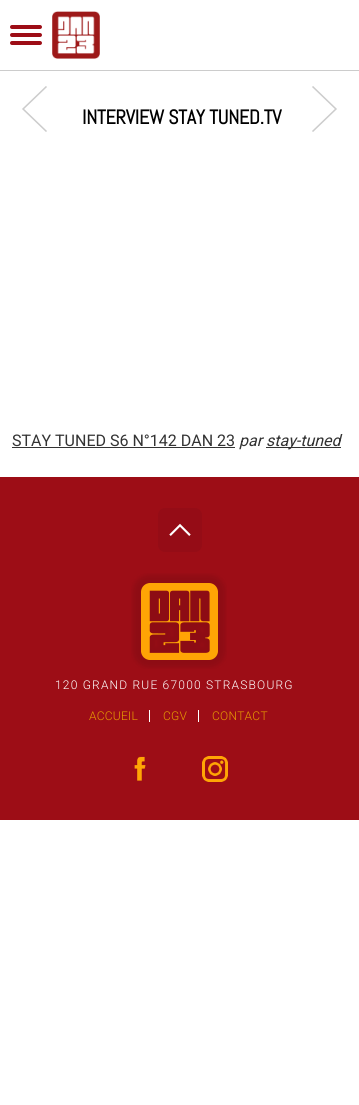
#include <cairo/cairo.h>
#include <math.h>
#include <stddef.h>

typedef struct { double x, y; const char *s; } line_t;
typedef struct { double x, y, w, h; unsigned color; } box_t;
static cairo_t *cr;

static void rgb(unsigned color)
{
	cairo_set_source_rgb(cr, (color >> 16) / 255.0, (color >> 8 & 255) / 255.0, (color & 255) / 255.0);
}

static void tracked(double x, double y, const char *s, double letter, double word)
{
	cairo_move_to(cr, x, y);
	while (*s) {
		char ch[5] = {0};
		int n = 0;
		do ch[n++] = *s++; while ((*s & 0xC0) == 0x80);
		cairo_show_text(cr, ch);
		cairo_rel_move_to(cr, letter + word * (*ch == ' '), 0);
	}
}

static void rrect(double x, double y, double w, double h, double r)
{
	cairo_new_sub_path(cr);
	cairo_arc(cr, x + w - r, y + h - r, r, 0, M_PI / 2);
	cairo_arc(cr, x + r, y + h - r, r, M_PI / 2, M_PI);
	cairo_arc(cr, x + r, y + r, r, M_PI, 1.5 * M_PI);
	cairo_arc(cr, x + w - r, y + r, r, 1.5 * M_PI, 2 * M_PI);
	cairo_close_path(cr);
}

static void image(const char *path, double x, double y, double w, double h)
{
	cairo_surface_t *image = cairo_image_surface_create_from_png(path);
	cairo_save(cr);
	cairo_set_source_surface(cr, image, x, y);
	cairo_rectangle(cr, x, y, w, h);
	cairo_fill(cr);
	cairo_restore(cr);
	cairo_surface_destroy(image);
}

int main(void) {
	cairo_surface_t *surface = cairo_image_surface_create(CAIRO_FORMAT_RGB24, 359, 1105);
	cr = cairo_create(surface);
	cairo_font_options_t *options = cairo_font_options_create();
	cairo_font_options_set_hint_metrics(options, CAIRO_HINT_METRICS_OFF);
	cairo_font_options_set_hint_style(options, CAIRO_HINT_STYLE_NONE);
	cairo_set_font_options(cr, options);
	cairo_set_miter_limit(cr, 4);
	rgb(0xffffff);
	cairo_paint(cr);
	rgb(0xcccccc);
	cairo_rectangle(cr, 0, 70, 359, 1);
	cairo_fill(cr);
	rgb(0x9d0d16);
	rrect(10, 25, 32, 4, 2);
	cairo_fill(cr);
	rrect(10, 33, 32, 4, 2);
	cairo_fill(cr);
	rrect(10, 41, 32, 4, 2);
	cairo_fill(cr);
	image("img/1.png", 52, 11, 48, 48);
	image("img/2.png", 22, 86, 25, 46);
	image("img/3.png", 312, 86, 25, 46);
	{
		static const box_t items[] = {
			{12, 447, 223, 1, 0x333333},
			{266, 447, 75, 1, 0x333333},
			{0, 477, 359, 343, 0x9d0d16},
		};
		for (size_t i = 0; i < sizeof items / sizeof *items; i++) {
			rgb(items[i].color);
			cairo_rectangle(cr, items[i].x, items[i].y, items[i].w, items[i].h);
			cairo_fill(cr);
		}
	}
	image("img/4.png", 158, 508, 44, 44);
	image("img/5.png", 131, 573, 96, 96);
	rgb(0xffffff);
	cairo_rectangle(cr, 149, 710, 1, 12);
	cairo_fill(cr);
	cairo_rectangle(cr, 198, 710, 1, 12);
	cairo_fill(cr);
	image("img/6.png", 134, 756, 12, 25);
	image("img/7.png", 202, 756, 26, 26);
	cairo_select_font_face(cr, "Abel", CAIRO_FONT_SLANT_NORMAL, CAIRO_FONT_WEIGHT_BOLD);
	cairo_set_font_size(cr, 20);
	rgb(0x000000);
	tracked(82, 124, "INTERVIEW STAY TUNED.TV", -0.25, 0);
	cairo_select_font_face(cr, "Roboto", CAIRO_FONT_SLANT_NORMAL, CAIRO_FONT_WEIGHT_NORMAL);
	cairo_set_font_size(cr, 16);
	rgb(0x333333);
	cairo_move_to(cr, 12, 446);
	cairo_show_text(cr, "STAY TUNED S6 N°142 DAN 23");
	cairo_select_font_face(cr, "Roboto", CAIRO_FONT_SLANT_ITALIC, CAIRO_FONT_WEIGHT_NORMAL);
	cairo_move_to(cr, 239, 446);
	cairo_show_text(cr, "par");
	cairo_move_to(cr, 266, 446);
	cairo_show_text(cr, "stay-tuned");
	cairo_select_font_face(cr, "Roboto Light", CAIRO_FONT_SLANT_NORMAL, CAIRO_FONT_WEIGHT_NORMAL);
	cairo_set_font_size(cr, 12);
	rgb(0xffffff);
	tracked(55, 689, "120 GRAND RUE 67000 STRASBOURG", 1.2, 0);
	rgb(0xe79c02);
	{
		static const line_t items[] = {
			{89, 720, "ACCUEIL"},
			{163, 720, "CGV"},
			{212, 720, "CONTACT"},
		};
		for (size_t i = 0; i < sizeof items / sizeof *items; i++) {
			tracked(items[i].x, items[i].y, items[i].s, 0.25, 0);
		}
	}
	cairo_surface_write_to_png(surface, "page.png");
	cairo_font_options_destroy(options);
	cairo_destroy(cr);
	cairo_surface_destroy(surface);
	return 0;
}
